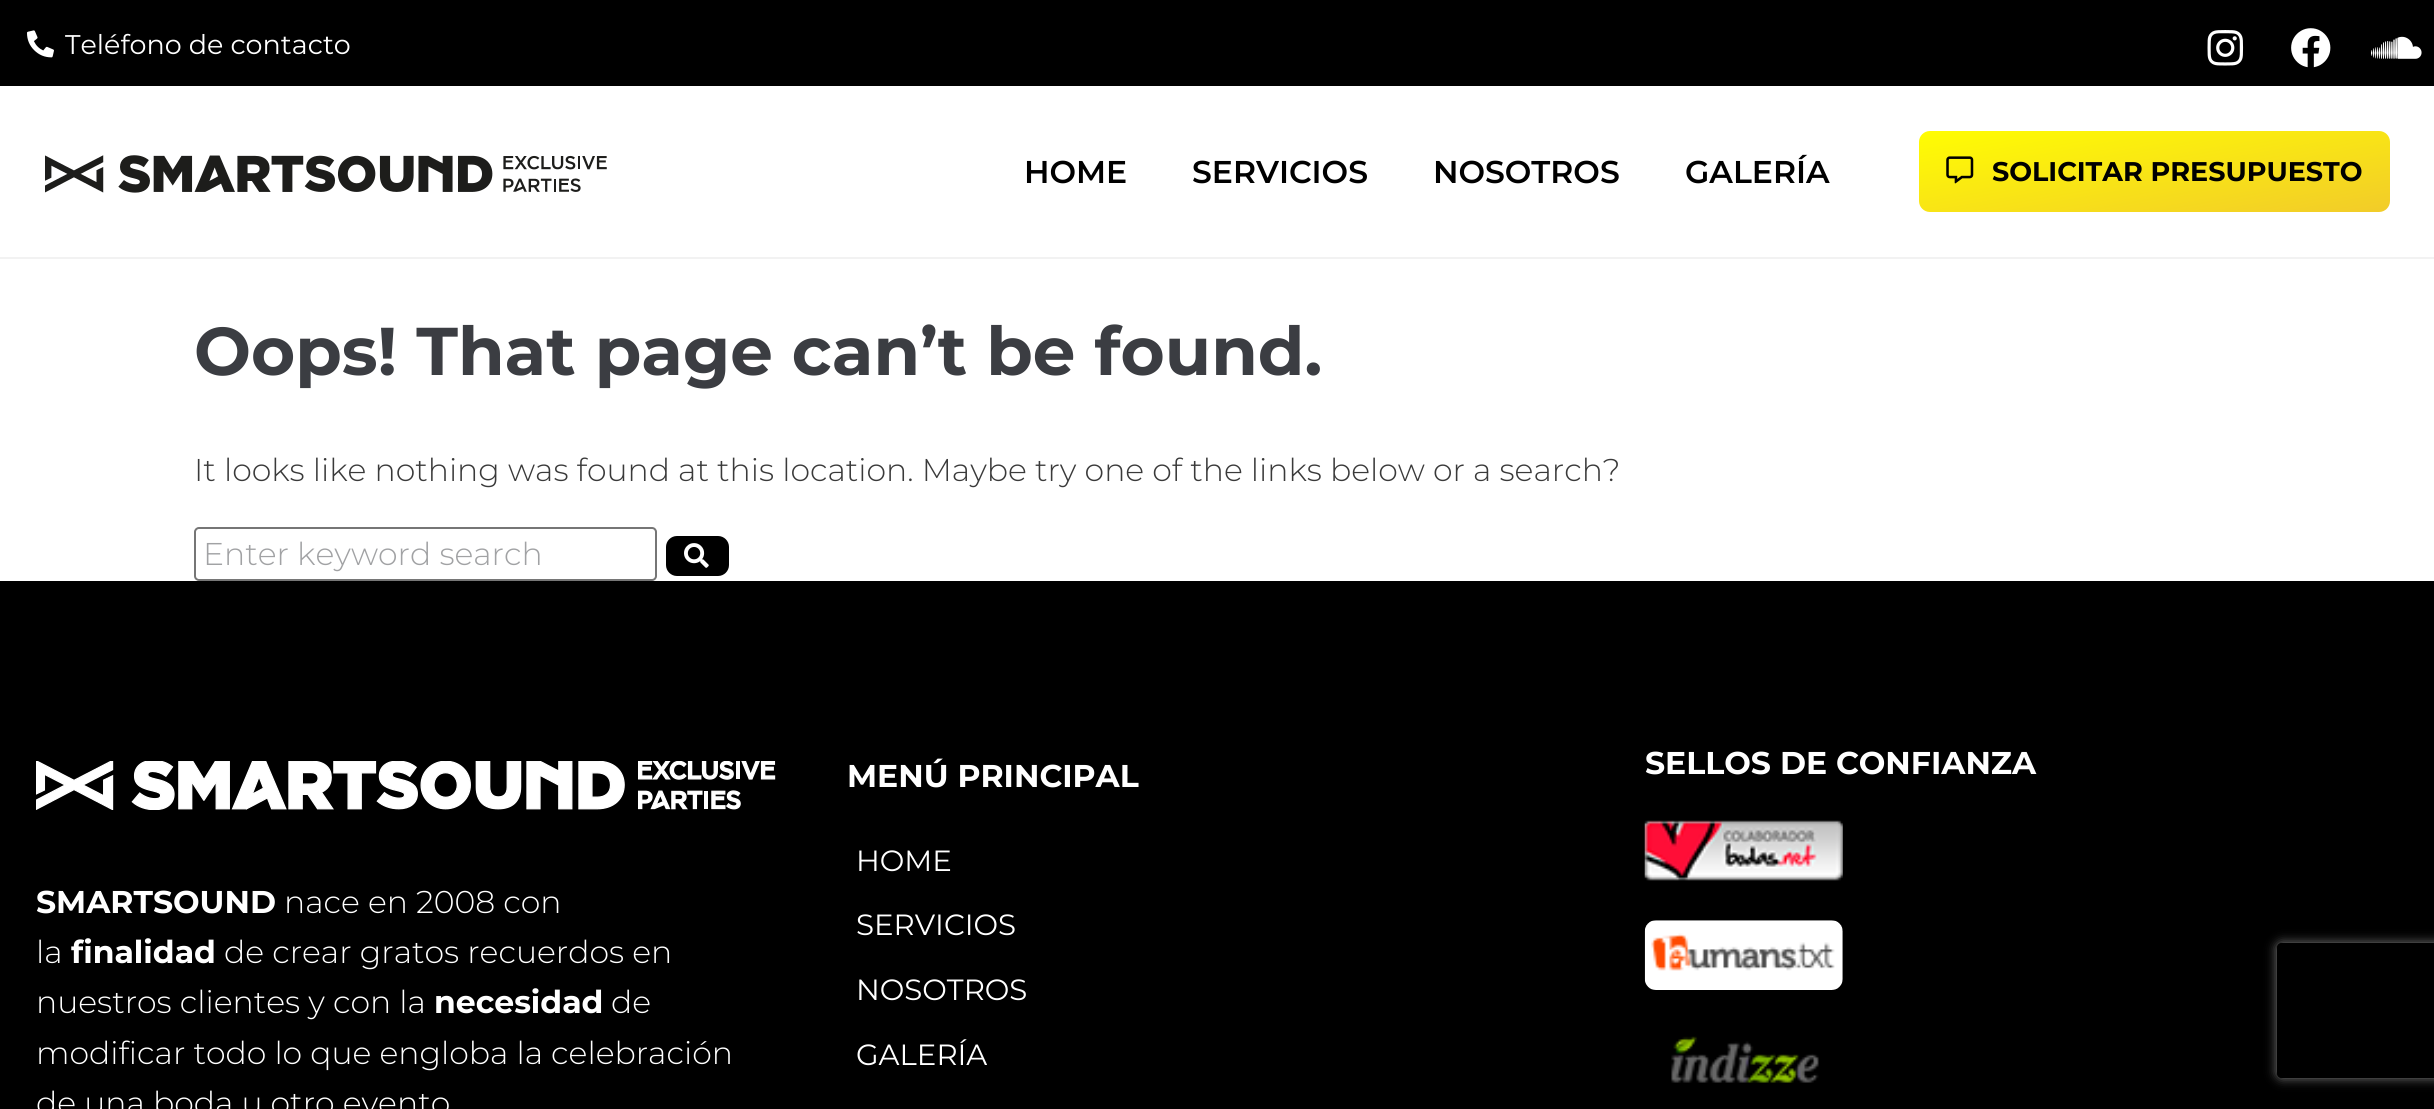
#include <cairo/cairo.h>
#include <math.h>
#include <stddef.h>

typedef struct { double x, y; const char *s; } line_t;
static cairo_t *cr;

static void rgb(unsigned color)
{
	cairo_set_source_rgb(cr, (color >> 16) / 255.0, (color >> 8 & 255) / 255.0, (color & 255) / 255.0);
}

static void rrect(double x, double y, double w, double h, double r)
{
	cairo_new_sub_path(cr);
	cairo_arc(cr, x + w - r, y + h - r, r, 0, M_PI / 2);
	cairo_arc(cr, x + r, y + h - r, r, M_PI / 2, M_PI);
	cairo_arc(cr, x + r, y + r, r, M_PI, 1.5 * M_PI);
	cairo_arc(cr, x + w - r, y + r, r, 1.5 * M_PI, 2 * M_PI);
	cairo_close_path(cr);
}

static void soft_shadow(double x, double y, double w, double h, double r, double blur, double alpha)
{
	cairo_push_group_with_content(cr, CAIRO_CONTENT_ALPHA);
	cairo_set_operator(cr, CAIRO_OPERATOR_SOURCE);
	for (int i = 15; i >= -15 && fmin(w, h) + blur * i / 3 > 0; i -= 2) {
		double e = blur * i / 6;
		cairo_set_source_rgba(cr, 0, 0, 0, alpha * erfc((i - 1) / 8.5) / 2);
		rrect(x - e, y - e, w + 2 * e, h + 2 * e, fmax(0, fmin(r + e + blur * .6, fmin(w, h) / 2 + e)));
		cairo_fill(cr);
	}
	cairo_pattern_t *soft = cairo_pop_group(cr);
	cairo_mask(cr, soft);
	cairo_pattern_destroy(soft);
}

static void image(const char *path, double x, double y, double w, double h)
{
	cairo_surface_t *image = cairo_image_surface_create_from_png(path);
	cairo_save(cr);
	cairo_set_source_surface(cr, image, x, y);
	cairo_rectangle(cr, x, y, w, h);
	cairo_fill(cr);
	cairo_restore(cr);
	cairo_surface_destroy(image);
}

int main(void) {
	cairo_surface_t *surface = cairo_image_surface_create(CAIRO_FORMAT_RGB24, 2434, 1109);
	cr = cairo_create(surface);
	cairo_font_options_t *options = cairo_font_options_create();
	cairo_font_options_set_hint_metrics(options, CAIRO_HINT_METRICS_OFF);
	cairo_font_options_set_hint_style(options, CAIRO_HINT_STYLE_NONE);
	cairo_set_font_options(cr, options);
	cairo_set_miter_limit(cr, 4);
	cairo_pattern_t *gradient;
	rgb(0xffffff);
	cairo_paint(cr);
	rgb(0x000000);
	cairo_rectangle(cr, 0, 0, 2434, 86);
	cairo_fill(cr);
	image("img/1.png", 27, 30, 27, 28);
	image("img/2.png", 2207, 30, 37, 36);
	image("img/3.png", 2291, 28, 40, 40);
	image("img/4.png", 2371, 36, 51, 23);
	rgb(0xf2f2f2);
	cairo_rectangle(cr, 0, 257, 2434, 2);
	cairo_fill(cr);
	image("img/5.png", 45, 155, 562, 38);
	gradient = cairo_pattern_create_linear(2140, 92, 2168, 250);
	cairo_pattern_add_color_stop_rgba(gradient, 0, 1, 0.992, 0.008, 1);
	cairo_pattern_add_color_stop_rgba(gradient, 1, 0.949, 0.8, 0.161, 1);
	cairo_set_source(cr, gradient);
	cairo_pattern_destroy(gradient);
	rrect(1919, 131, 471, 81, 11);
	cairo_fill(cr);
	image("img/6.png", 1946, 156, 28, 28);
	rrect(195, 528, 461, 52, 4);
	rgb(0x767676);
	cairo_stroke(cr);
	rgb(0x000000);
	rrect(666, 536, 63, 40, 11);
	cairo_fill(cr);
	image("img/7.png", 684, 543, 25, 25);
	cairo_rectangle(cr, 0, 581, 2434, 528);
	cairo_fill(cr);
	image("img/8.png", 36, 761, 740, 49);
	image("img/9.png", 1644, 820, 199, 61);
	image("img/10.png", 1644, 920, 199, 70);
	image("img/11.png", 1671, 1036, 148, 47);
	cairo_save(cr);
	cairo_set_fill_rule(cr, CAIRO_FILL_RULE_EVEN_ODD);
	cairo_new_path(cr);
	cairo_move_to(cr, 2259, 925);
	cairo_line_to(cr, 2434, 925);
	cairo_line_to(cr, 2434, 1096);
	cairo_line_to(cr, 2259, 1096);
	cairo_close_path(cr);
	cairo_move_to(cr, 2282, 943);
	cairo_line_to(cr, 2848, 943);
	cairo_curve_to(cr, 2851, 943, 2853, 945, 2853, 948);
	cairo_line_to(cr, 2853, 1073);
	cairo_curve_to(cr, 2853, 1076, 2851, 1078, 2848, 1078);
	cairo_line_to(cr, 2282, 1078);
	cairo_curve_to(cr, 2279, 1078, 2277, 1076, 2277, 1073);
	cairo_line_to(cr, 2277, 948);
	cairo_curve_to(cr, 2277, 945, 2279, 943, 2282, 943);
	cairo_close_path(cr);
	cairo_clip(cr);
	rgb(0x808080);
	soft_shadow(2277, 943, 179, 135, 5, 5.5, 1);
	cairo_restore(cr);
	cairo_select_font_face(cr, "Montserrat", CAIRO_FONT_SLANT_NORMAL, CAIRO_FONT_WEIGHT_NORMAL);
	cairo_set_font_size(cr, 27);
	rgb(0xffffff);
	cairo_move_to(cr, 65, 54);
	cairo_show_text(cr, "Teléfono de contacto");
	cairo_select_font_face(cr, "Montserrat SemiBold", CAIRO_FONT_SLANT_NORMAL, CAIRO_FONT_WEIGHT_NORMAL);
	cairo_set_font_size(cr, 31.5);
	rgb(0x000000);
	{
		static const line_t items[] = {
			{1024, 183, "HOME"},
			{1192, 183, "SERVICIOS"},
			{1433, 183, "NOSOTROS"},
			{1685, 183, "GALERÍA"},
		};
		for (size_t i = 0; i < sizeof items / sizeof *items; i++) {
			cairo_move_to(cr, items[i].x, items[i].y);
			cairo_show_text(cr, items[i].s);
		}
	}
	cairo_select_font_face(cr, "Montserrat", CAIRO_FONT_SLANT_NORMAL, CAIRO_FONT_WEIGHT_BOLD);
	cairo_set_font_size(cr, 27);
	cairo_move_to(cr, 1992, 181);
	cairo_show_text(cr, "SOLICITAR PRESUPUESTO");
	cairo_set_font_size(cr, 67.5);
	rgb(0x3b3d42);
	cairo_move_to(cr, 194, 375);
	cairo_show_text(cr, "Oops! That page can’t be found.");
	cairo_select_font_face(cr, "Montserrat Light", CAIRO_FONT_SLANT_NORMAL, CAIRO_FONT_WEIGHT_NORMAL);
	cairo_set_font_size(cr, 31.5);
	rgb(0x3a3a3a);
	cairo_move_to(cr, 194, 481);
	cairo_show_text(cr, "It looks like nothing was found at this location. Maybe try one of the links below or a search?");
	rgb(0xa1a2a4);
	cairo_move_to(cr, 203, 565);
	cairo_show_text(cr, "Enter keyword search");
	cairo_select_font_face(cr, "Montserrat", CAIRO_FONT_SLANT_NORMAL, CAIRO_FONT_WEIGHT_BOLD);
	rgb(0xffffff);
	cairo_move_to(cr, 36, 913);
	cairo_show_text(cr, "SMARTSOUND");
	cairo_select_font_face(cr, "Montserrat Light", CAIRO_FONT_SLANT_NORMAL, CAIRO_FONT_WEIGHT_NORMAL);
	cairo_move_to(cr, 284, 913);
	cairo_show_text(cr, "nace en 2008 con");
	cairo_move_to(cr, 36, 963);
	cairo_show_text(cr, "la");
	cairo_select_font_face(cr, "Montserrat", CAIRO_FONT_SLANT_NORMAL, CAIRO_FONT_WEIGHT_BOLD);
	cairo_move_to(cr, 71, 963);
	cairo_show_text(cr, "finalidad");
	cairo_select_font_face(cr, "Montserrat Light", CAIRO_FONT_SLANT_NORMAL, CAIRO_FONT_WEIGHT_NORMAL);
	cairo_move_to(cr, 224, 963);
	cairo_show_text(cr, "de crear gratos recuerdos en");
	cairo_move_to(cr, 36, 1013);
	cairo_show_text(cr, "nuestros clientes y con la");
	cairo_select_font_face(cr, "Montserrat", CAIRO_FONT_SLANT_NORMAL, CAIRO_FONT_WEIGHT_BOLD);
	cairo_move_to(cr, 434, 1013);
	cairo_show_text(cr, "necesidad");
	cairo_select_font_face(cr, "Montserrat Light", CAIRO_FONT_SLANT_NORMAL, CAIRO_FONT_WEIGHT_NORMAL);
	{
		static const line_t items[] = {
			{611, 1013, "de"},
			{36, 1064, "modificar todo lo que engloba la celebración"},
			{36, 1114, "de una boda u otro evento"},
		};
		for (size_t i = 0; i < sizeof items / sizeof *items; i++) {
			cairo_move_to(cr, items[i].x, items[i].y);
			cairo_show_text(cr, items[i].s);
		}
	}
	cairo_select_font_face(cr, "Montserrat", CAIRO_FONT_SLANT_NORMAL, CAIRO_FONT_WEIGHT_BOLD);
	cairo_move_to(cr, 847, 787);
	cairo_show_text(cr, "MENÚ PRINCIPAL");
	cairo_select_font_face(cr, "Montserrat", CAIRO_FONT_SLANT_NORMAL, CAIRO_FONT_WEIGHT_NORMAL);
	cairo_set_font_size(cr, 29.25);
	{
		static const line_t items[] = {
			{856, 871, "HOME"},
			{856, 935, "SERVICIOS"},
			{856, 1000, "NOSOTROS"},
			{856, 1065, "GALERÍA"},
		};
		for (size_t i = 0; i < sizeof items / sizeof *items; i++) {
			cairo_move_to(cr, items[i].x, items[i].y);
			cairo_show_text(cr, items[i].s);
		}
	}
	cairo_select_font_face(cr, "Montserrat", CAIRO_FONT_SLANT_NORMAL, CAIRO_FONT_WEIGHT_BOLD);
	cairo_set_font_size(cr, 31.5);
	cairo_move_to(cr, 1645, 774);
	cairo_show_text(cr, "SELLOS DE CONFIANZA");
	cairo_surface_write_to_png(surface, "page.png");
	cairo_font_options_destroy(options);
	cairo_destroy(cr);
	cairo_surface_destroy(surface);
	return 0;
}
